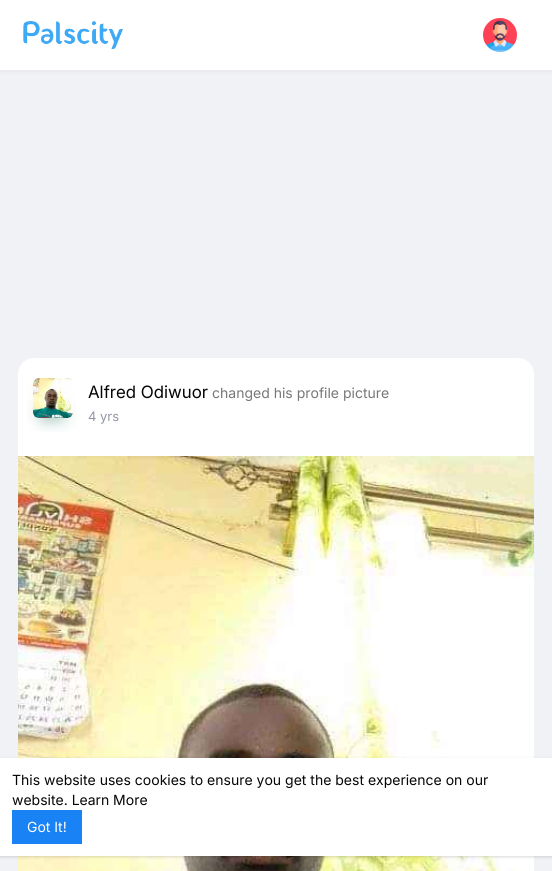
#include <cairo/cairo.h>
#include <math.h>
#include <stddef.h>

static cairo_t *cr;

static void rgb(unsigned color)
{
	cairo_set_source_rgb(cr, (color >> 16) / 255.0, (color >> 8 & 255) / 255.0, (color & 255) / 255.0);
}

static void rrect(double x, double y, double w, double h, double r)
{
	cairo_new_sub_path(cr);
	cairo_arc(cr, x + w - r, y + h - r, r, 0, M_PI / 2);
	cairo_arc(cr, x + r, y + h - r, r, M_PI / 2, M_PI);
	cairo_arc(cr, x + r, y + r, r, M_PI, 1.5 * M_PI);
	cairo_arc(cr, x + w - r, y + r, r, 1.5 * M_PI, 2 * M_PI);
	cairo_close_path(cr);
}

static void soft_shadow(double x, double y, double w, double h, double r, double blur, double alpha)
{
	cairo_push_group_with_content(cr, CAIRO_CONTENT_ALPHA);
	cairo_set_operator(cr, CAIRO_OPERATOR_SOURCE);
	for (int i = 15; i >= -15 && fmin(w, h) + blur * i / 3 > 0; i -= 2) {
		double e = blur * i / 6;
		cairo_set_source_rgba(cr, 0, 0, 0, alpha * erfc((i - 1) / 8.5) / 2);
		rrect(x - e, y - e, w + 2 * e, h + 2 * e, fmax(0, fmin(r + e + blur * .6, fmin(w, h) / 2 + e)));
		cairo_fill(cr);
	}
	cairo_pattern_t *soft = cairo_pop_group(cr);
	cairo_mask(cr, soft);
	cairo_pattern_destroy(soft);
}

static void image(const char *path, double x, double y, double w, double h)
{
	cairo_surface_t *image = cairo_image_surface_create_from_png(path);
	cairo_save(cr);
	cairo_set_source_surface(cr, image, x, y);
	cairo_rectangle(cr, x, y, w, h);
	cairo_fill(cr);
	cairo_restore(cr);
	cairo_surface_destroy(image);
}

int main(void) {
	cairo_surface_t *surface = cairo_image_surface_create(CAIRO_FORMAT_RGB24, 552, 871);
	cr = cairo_create(surface);
	cairo_font_options_t *options = cairo_font_options_create();
	cairo_font_options_set_hint_metrics(options, CAIRO_HINT_METRICS_OFF);
	cairo_font_options_set_hint_style(options, CAIRO_HINT_STYLE_NONE);
	cairo_set_font_options(cr, options);
	cairo_set_miter_limit(cr, 4);
	rgb(0xf0f2f5);
	cairo_paint(cr);
	rgb(0x000000);
	soft_shadow(0, 1, 552, 70, 0, 3, 0.05);
	rgb(0xffffff);
	cairo_rectangle(cr, 0, 0, 552, 70);
	cairo_fill(cr);
	image("img/1.png", 23, 21, 100, 28);
	image("img/2.png", 483, 18, 34, 34);
	rrect(18, 358, 516, 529, 16);
	cairo_fill(cr);
	image("img/3.png", 27, 378, 50, 54);
	image("img/4.png", 33, 378, 40, 40);
	image("img/5.png", 18, 456, 516, 415);
	rgb(0x000000);
	soft_shadow(0, 759, 552, 98, 0, 1, 0.06);
	soft_shadow(0, 759, 552, 98, 0, 1.5, 0.1);
	rgb(0xffffff);
	cairo_rectangle(cr, 0, 758, 552, 98);
	cairo_fill(cr);
	rgb(0x1983f5);
	cairo_rectangle(cr, 12, 810, 70, 34);
	cairo_fill(cr);
	cairo_select_font_face(cr, "Inter", CAIRO_FONT_SLANT_NORMAL, CAIRO_FONT_WEIGHT_NORMAL);
	cairo_set_font_size(cr, 17);
	rgb(0x050505);
	cairo_move_to(cr, 88, 398);
	cairo_show_text(cr, "Alfred Odiwuor");
	cairo_select_font_face(cr, "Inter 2", CAIRO_FONT_SLANT_NORMAL, CAIRO_FONT_WEIGHT_NORMAL);
	cairo_set_font_size(cr, 14);
	rgb(0x777777);
	cairo_move_to(cr, 212, 398);
	cairo_show_text(cr, "changed his profile picture");
	cairo_set_font_size(cr, 13);
	rgb(0x9197a3);
	cairo_move_to(cr, 88, 421);
	cairo_show_text(cr, "4 yrs");
	cairo_set_font_size(cr, 14);
	rgb(0x050505);
	cairo_move_to(cr, 12, 785);
	cairo_show_text(cr, "This website uses cookies to ensure you get the best experience on our");
	cairo_move_to(cr, 12, 805);
	cairo_show_text(cr, "website. Learn More");
	rgb(0xffffff);
	cairo_move_to(cr, 27, 832);
	cairo_show_text(cr, "Got It!");
	cairo_surface_write_to_png(surface, "page.png");
	cairo_font_options_destroy(options);
	cairo_destroy(cr);
	cairo_surface_destroy(surface);
	return 0;
}
